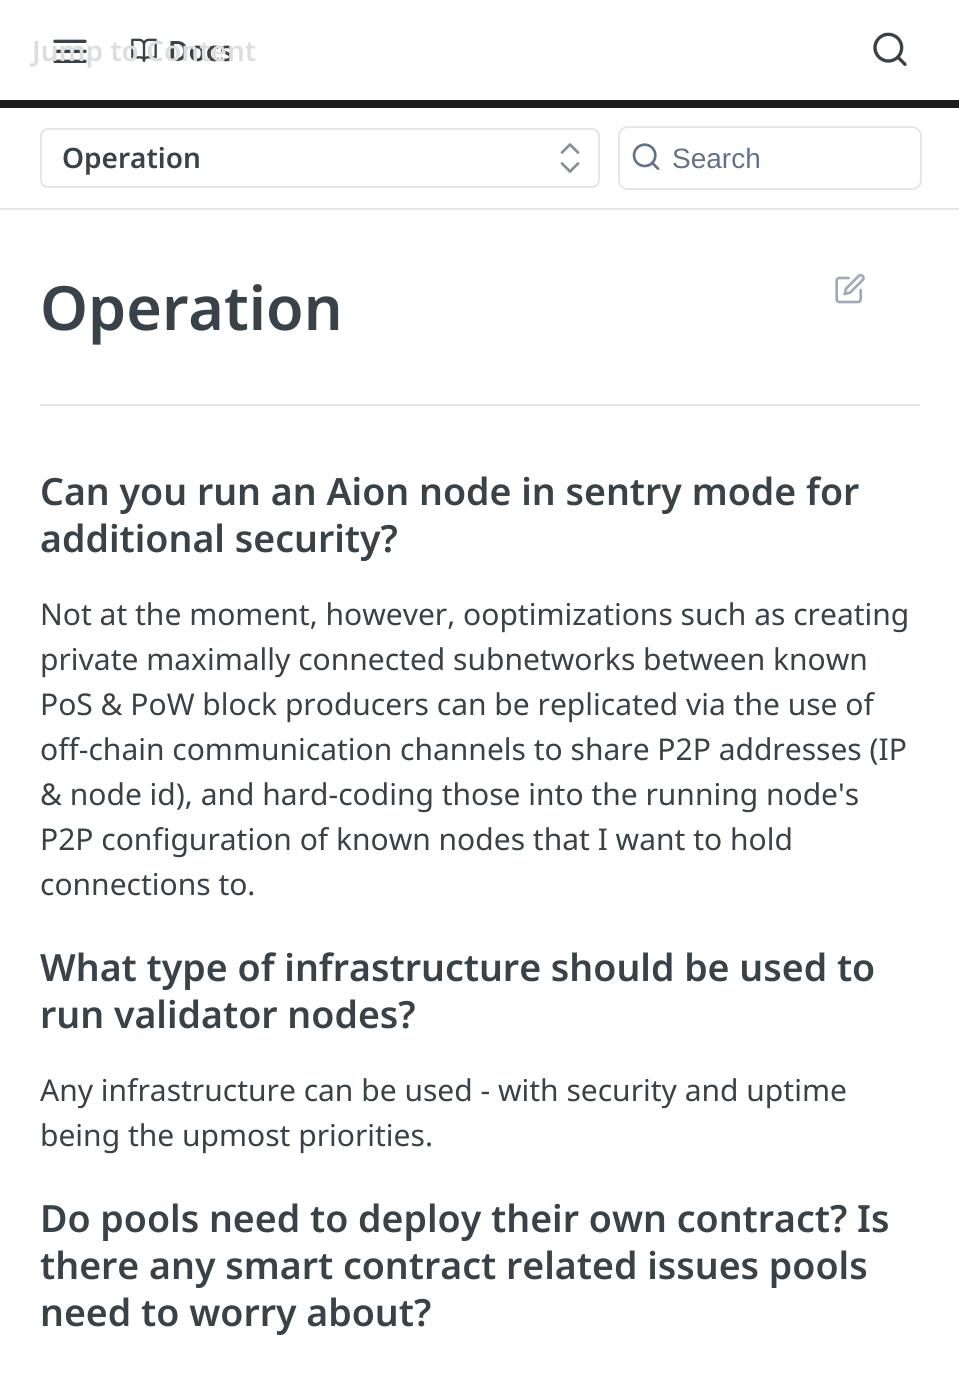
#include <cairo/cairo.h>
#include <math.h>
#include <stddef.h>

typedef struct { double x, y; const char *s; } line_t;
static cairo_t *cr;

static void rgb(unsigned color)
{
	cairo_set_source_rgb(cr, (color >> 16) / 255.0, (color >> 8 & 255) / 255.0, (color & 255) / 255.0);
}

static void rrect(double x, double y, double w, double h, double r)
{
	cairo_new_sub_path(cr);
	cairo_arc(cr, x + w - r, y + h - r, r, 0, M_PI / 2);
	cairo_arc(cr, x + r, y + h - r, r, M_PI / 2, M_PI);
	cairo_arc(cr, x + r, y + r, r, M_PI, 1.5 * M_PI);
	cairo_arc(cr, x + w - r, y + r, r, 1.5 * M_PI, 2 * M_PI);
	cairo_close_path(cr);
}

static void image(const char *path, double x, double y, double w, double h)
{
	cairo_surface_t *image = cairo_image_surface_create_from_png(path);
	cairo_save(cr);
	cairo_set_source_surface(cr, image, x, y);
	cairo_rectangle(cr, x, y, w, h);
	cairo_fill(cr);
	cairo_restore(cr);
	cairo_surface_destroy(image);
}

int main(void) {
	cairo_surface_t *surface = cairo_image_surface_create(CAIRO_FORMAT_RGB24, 959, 1390);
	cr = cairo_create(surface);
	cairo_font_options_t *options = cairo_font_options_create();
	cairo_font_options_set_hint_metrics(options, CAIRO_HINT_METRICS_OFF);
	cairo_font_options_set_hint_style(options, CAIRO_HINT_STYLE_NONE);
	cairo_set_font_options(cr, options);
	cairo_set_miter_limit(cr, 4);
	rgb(0xffffff);
	cairo_paint(cr);
	rgb(0xe6e6e6);
	cairo_rectangle(cr, 0, 208, 959, 2);
	cairo_fill(cr);
	rgb(0x1c1c1c);
	cairo_rectangle(cr, 0, 100, 959, 8);
	cairo_fill(cr);
	image("img/1.png", 873, 32, 34, 34);
	image("img/2.png", 53, 39, 34, 24);
	image("img/3.png", 131, 38, 26, 24);
	rrect(41, 129, 558, 58, 7);
	rgb(0xe6e6e6);
	cairo_stroke(cr);
	cairo_new_path(cr);
	cairo_move_to(cr, 562, 163.5);
	cairo_line_to(cr, 570, 171.5);
	cairo_line_to(cr, 578, 163.5);
	cairo_move_to(cr, 578, 152.5);
	cairo_line_to(cr, 570, 144.5);
	cairo_line_to(cr, 562, 152.5);
	rgb(0x888e91);
	cairo_set_line_width(cr, 2.7);
	cairo_set_line_cap(cr, CAIRO_LINE_CAP_ROUND);
	cairo_set_line_join(cr, CAIRO_LINE_JOIN_ROUND);
	cairo_stroke(cr);
	rrect(619, 127, 302, 62, 9);
	rgb(0xe6e6e6);
	cairo_set_line_width(cr, 2);
	cairo_set_line_cap(cr, CAIRO_LINE_CAP_BUTT);
	cairo_set_line_join(cr, CAIRO_LINE_JOIN_MITER);
	cairo_stroke(cr);
	rgb(0xffffff);
	rrect(620, 128, 300, 60, 8);
	cairo_fill(cr);
	image("img/4.png", 632, 143, 28, 27);
	rgb(0xe6e6e6);
	cairo_rectangle(cr, 40, 404, 880, 2);
	cairo_fill(cr);
	image("img/5.png", 835, 273, 30, 31);
	cairo_select_font_face(cr, "Noto Sans SemiBold", CAIRO_FONT_SLANT_NORMAL, CAIRO_FONT_WEIGHT_NORMAL);
	cairo_set_font_size(cr, 28);
	rgb(0x384248);
	cairo_move_to(cr, 168, 61);
	cairo_show_text(cr, "Docs");
	rgb(0xdbddde);
	cairo_move_to(cr, 32, 61);
	cairo_show_text(cr, "Jump to Content");
	rgb(0x384248);
	cairo_move_to(cr, 62, 168);
	cairo_show_text(cr, "Operation");
	cairo_select_font_face(cr, "Liberation Sans", CAIRO_FONT_SLANT_NORMAL, CAIRO_FONT_WEIGHT_NORMAL);
	rgb(0x637288);
	cairo_move_to(cr, 672, 168);
	cairo_show_text(cr, "Search");
	cairo_select_font_face(cr, "Noto Sans SemiBold", CAIRO_FONT_SLANT_NORMAL, CAIRO_FONT_WEIGHT_NORMAL);
	cairo_set_font_size(cr, 61);
	rgb(0x384248);
	cairo_move_to(cr, 40, 330);
	cairo_show_text(cr, "Operation");
	cairo_set_font_size(cr, 37.5);
	cairo_move_to(cr, 40, 505);
	cairo_show_text(cr, "Can you run an Aion node in sentry mode for");
	cairo_move_to(cr, 40, 552);
	cairo_show_text(cr, "additional security?");
	cairo_select_font_face(cr, "Noto Sans", CAIRO_FONT_SLANT_NORMAL, CAIRO_FONT_WEIGHT_NORMAL);
	cairo_set_font_size(cr, 30);
	{
		static const line_t items[] = {
			{40, 625, "Not at the moment, however, ooptimizations such as creating"},
			{40, 670, "private maximally connected subnetworks between known"},
			{40, 715, "PoS & PoW block producers can be replicated via the use of"},
			{40, 760, "off-chain communication channels to share P2P addresses (IP"},
			{40, 805, "& node id), and hard-coding those into the running node's"},
			{40, 850, "P2P configuration of known nodes that I want to hold"},
			{40, 895, "connections to."},
		};
		for (size_t i = 0; i < sizeof items / sizeof *items; i++) {
			cairo_move_to(cr, items[i].x, items[i].y);
			cairo_show_text(cr, items[i].s);
		}
	}
	cairo_select_font_face(cr, "Noto Sans SemiBold", CAIRO_FONT_SLANT_NORMAL, CAIRO_FONT_WEIGHT_NORMAL);
	cairo_set_font_size(cr, 37.5);
	cairo_move_to(cr, 40, 981);
	cairo_show_text(cr, "What type of infrastructure should be used to");
	cairo_move_to(cr, 40, 1028);
	cairo_show_text(cr, "run validator nodes?");
	cairo_select_font_face(cr, "Noto Sans", CAIRO_FONT_SLANT_NORMAL, CAIRO_FONT_WEIGHT_NORMAL);
	cairo_set_font_size(cr, 30);
	cairo_move_to(cr, 40, 1101);
	cairo_show_text(cr, "Any infrastructure can be used - with security and uptime");
	cairo_move_to(cr, 40, 1146);
	cairo_show_text(cr, "being the upmost priorities.");
	cairo_select_font_face(cr, "Noto Sans SemiBold", CAIRO_FONT_SLANT_NORMAL, CAIRO_FONT_WEIGHT_NORMAL);
	cairo_set_font_size(cr, 37.5);
	{
		static const line_t items[] = {
			{40, 1232, "Do pools need to deploy their own contract? Is"},
			{40, 1279, "there any smart contract related issues pools"},
			{40, 1326, "need to worry about?"},
		};
		for (size_t i = 0; i < sizeof items / sizeof *items; i++) {
			cairo_move_to(cr, items[i].x, items[i].y);
			cairo_show_text(cr, items[i].s);
		}
	}
	cairo_surface_write_to_png(surface, "page.png");
	cairo_font_options_destroy(options);
	cairo_destroy(cr);
	cairo_surface_destroy(surface);
	return 0;
}
